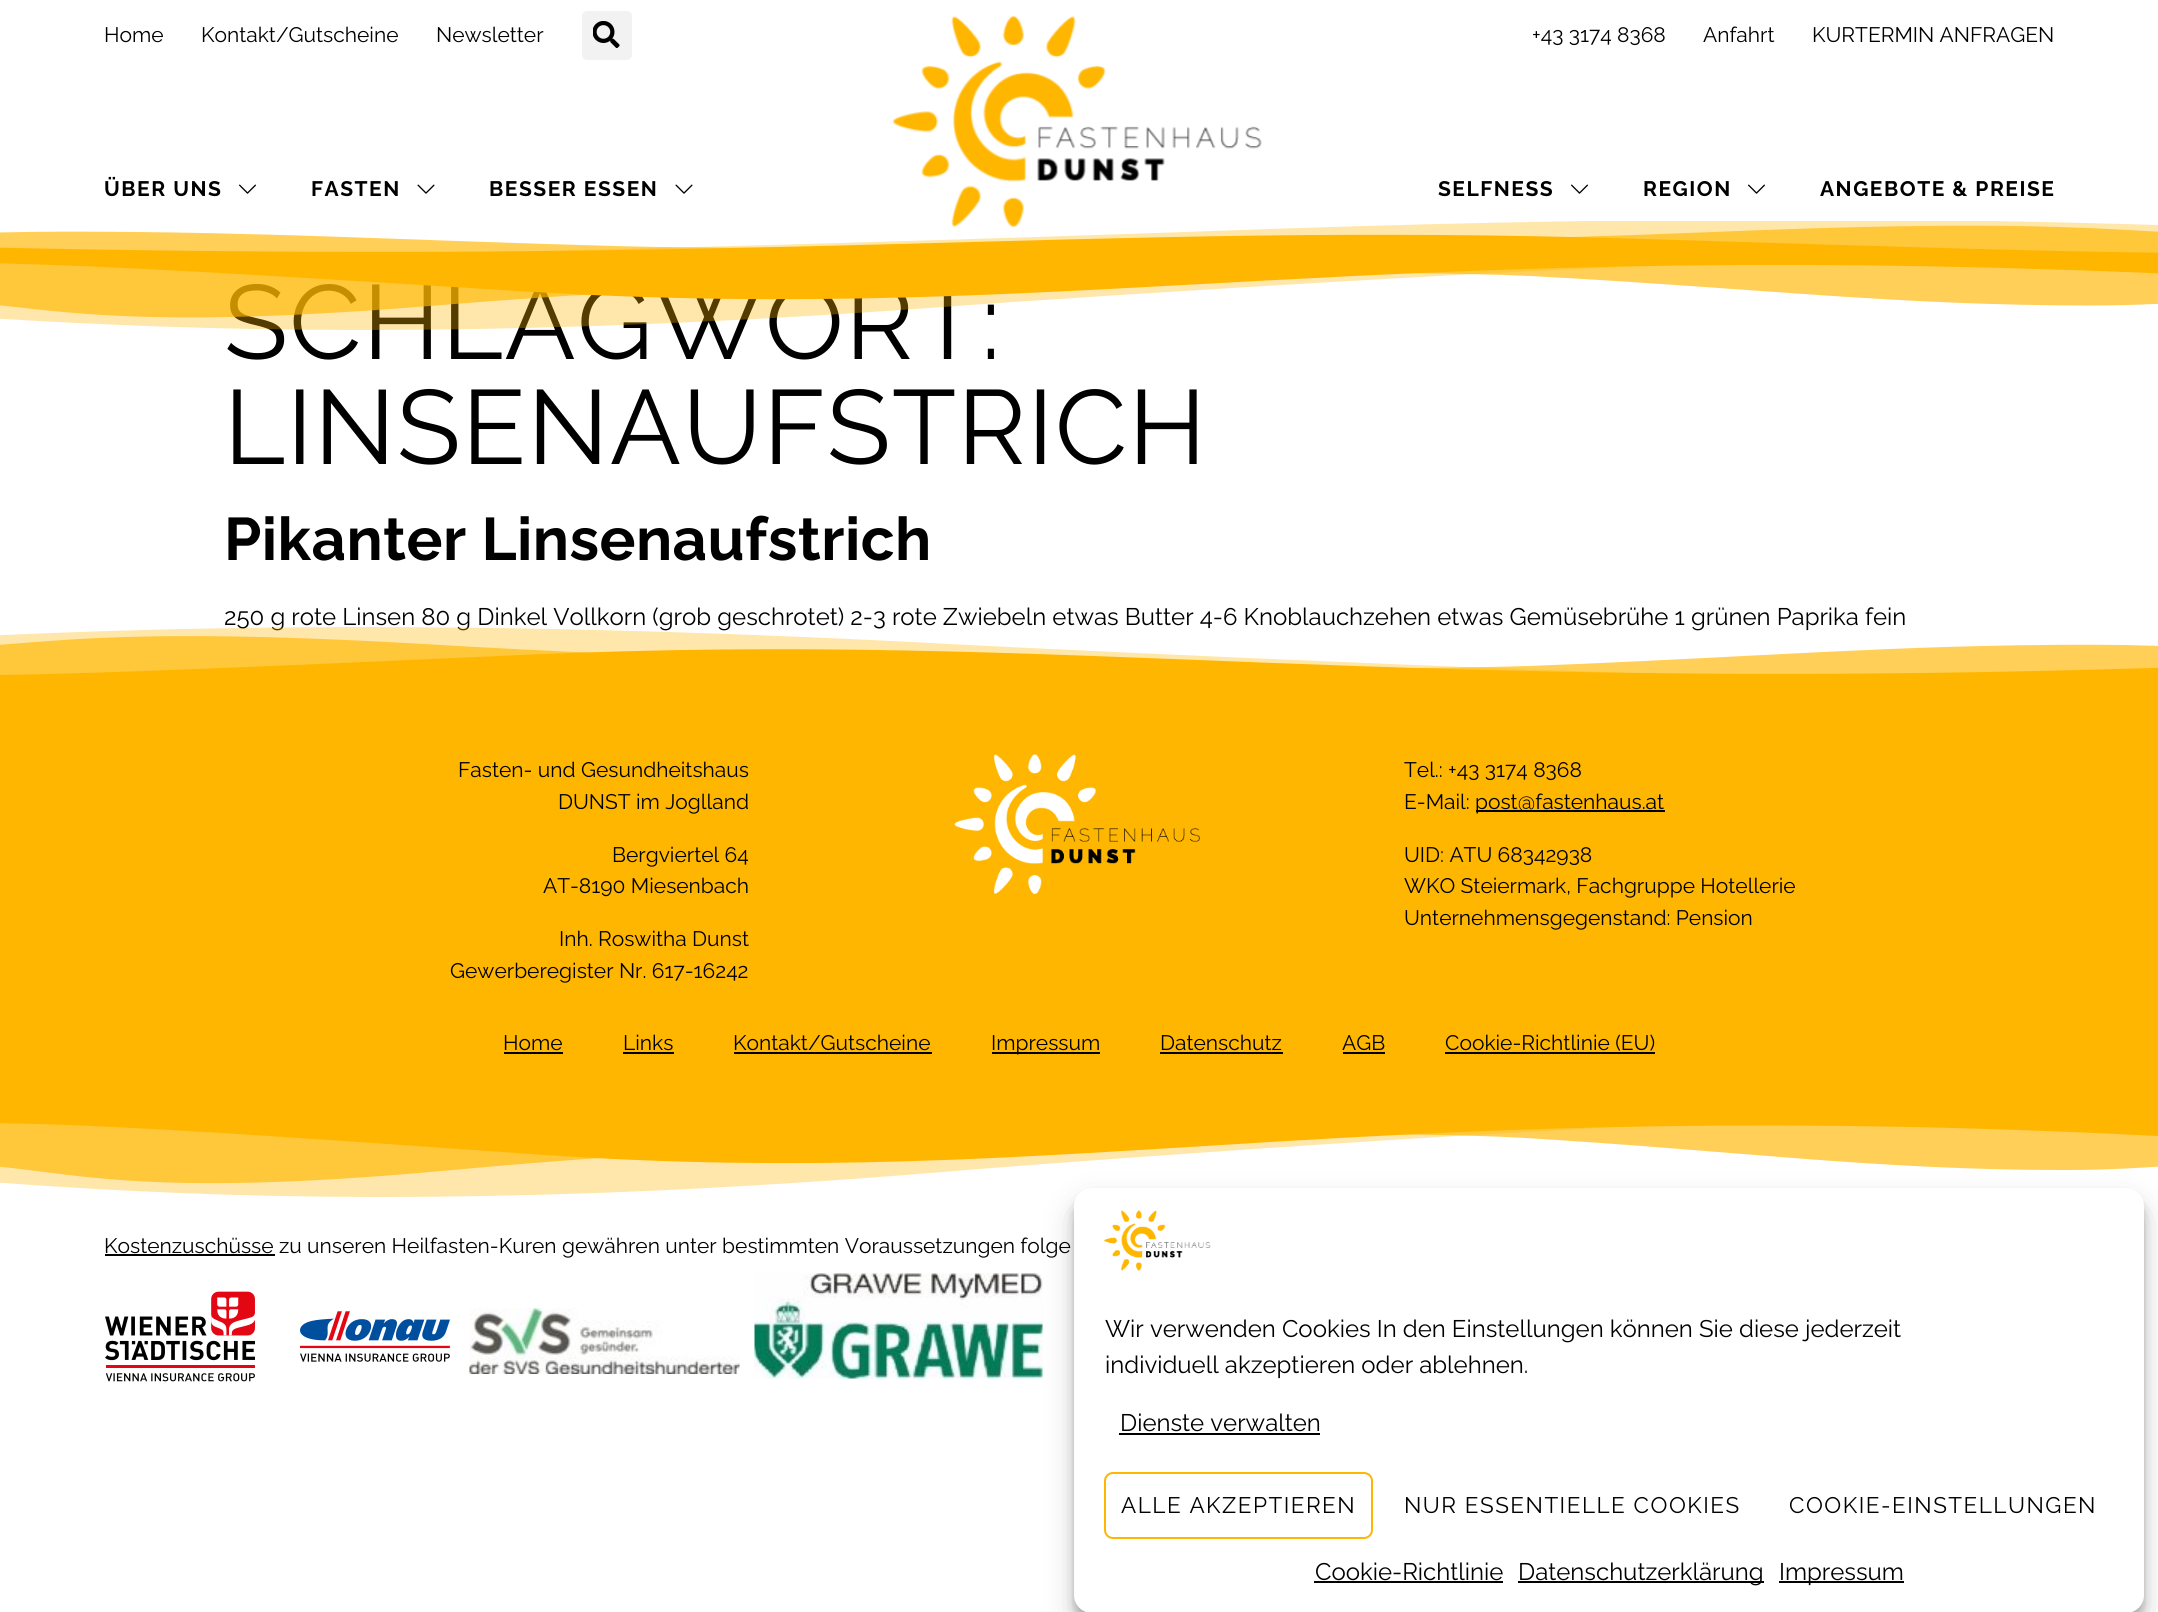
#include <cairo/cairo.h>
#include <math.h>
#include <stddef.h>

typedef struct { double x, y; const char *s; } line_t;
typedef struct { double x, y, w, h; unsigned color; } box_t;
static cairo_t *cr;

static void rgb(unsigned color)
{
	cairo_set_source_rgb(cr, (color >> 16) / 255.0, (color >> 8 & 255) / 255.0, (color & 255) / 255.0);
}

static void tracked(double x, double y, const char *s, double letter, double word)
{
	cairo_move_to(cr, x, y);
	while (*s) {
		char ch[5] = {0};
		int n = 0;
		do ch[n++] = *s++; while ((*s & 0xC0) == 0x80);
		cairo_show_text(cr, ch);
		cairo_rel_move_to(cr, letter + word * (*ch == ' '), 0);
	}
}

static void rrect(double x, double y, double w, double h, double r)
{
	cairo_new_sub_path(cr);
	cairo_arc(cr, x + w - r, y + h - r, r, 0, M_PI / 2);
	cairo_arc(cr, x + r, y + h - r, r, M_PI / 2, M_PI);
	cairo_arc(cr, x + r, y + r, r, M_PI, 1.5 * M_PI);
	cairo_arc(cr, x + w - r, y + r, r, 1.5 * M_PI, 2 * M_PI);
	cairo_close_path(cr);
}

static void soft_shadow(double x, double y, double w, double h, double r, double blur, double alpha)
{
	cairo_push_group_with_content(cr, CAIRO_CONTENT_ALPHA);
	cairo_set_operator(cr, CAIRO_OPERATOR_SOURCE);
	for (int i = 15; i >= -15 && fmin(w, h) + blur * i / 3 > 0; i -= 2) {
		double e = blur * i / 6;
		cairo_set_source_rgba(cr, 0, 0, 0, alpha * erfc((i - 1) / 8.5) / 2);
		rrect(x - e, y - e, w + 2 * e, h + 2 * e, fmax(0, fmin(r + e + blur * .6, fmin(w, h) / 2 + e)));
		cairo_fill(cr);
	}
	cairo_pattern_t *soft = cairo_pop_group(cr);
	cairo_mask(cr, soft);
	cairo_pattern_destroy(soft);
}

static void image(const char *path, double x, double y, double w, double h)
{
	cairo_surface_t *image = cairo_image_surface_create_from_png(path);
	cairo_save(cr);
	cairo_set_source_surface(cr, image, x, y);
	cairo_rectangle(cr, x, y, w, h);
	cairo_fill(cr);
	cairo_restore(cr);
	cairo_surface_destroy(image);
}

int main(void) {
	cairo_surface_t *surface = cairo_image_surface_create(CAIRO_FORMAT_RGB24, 2158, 1612);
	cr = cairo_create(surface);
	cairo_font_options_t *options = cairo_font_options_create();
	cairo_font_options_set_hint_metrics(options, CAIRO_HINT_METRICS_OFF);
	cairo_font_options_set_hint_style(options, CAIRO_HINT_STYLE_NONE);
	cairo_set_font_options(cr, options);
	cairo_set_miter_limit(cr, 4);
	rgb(0xffffff);
	cairo_paint(cr);
	rgb(0xf2f2f2);
	rrect(582, 11, 50, 49, 5);
	cairo_fill(cr);
	image("img/1.png", 593, 21, 27, 27);
	image("img/2.png", 239, 184, 17, 10);
	image("img/3.png", 417, 184, 18, 10);
	image("img/3.png", 675, 184, 18, 10);
	image("img/4.png", 892, 16, 370, 211);
	image("img/2.png", 1571, 184, 17, 10);
	image("img/2.png", 1748, 184, 17, 10);
	image("img/5.png", 0, 221, 2158, 34);
	rgb(0xffb600);
	cairo_rectangle(cr, 0, 680, 2158, 436);
	cairo_fill(cr);
	image("img/8.png", 954, 754, 246, 140);
	{
		static const box_t items[] = {
			{1476, 810, 189, 2, 0x000000},
			{504, 1052, 59, 2, 0x000000},
			{623, 1052, 51, 2, 0x000000},
			{734, 1052, 198, 2, 0x000000},
			{992, 1052, 108, 2, 0x000000},
			{1160, 1052, 123, 2, 0x000000},
			{1343, 1052, 42, 2, 0x000000},
			{1445, 1052, 210, 2, 0x000000},
		};
		for (size_t i = 0; i < sizeof items / sizeof *items; i++) {
			rgb(items[i].color);
			cairo_rectangle(cr, items[i].x, items[i].y, items[i].w, items[i].h);
			cairo_fill(cr);
		}
	}
	image("img/9.png", 0, 1116, 2158, 81);
	cairo_rectangle(cr, 105, 1254, 170, 2);
	cairo_fill(cr);
	image("img/10.png", 105, 1291, 150, 91);
	image("img/11.png", 300, 1311, 150, 51);
	image("img/12.png", 469, 1308, 271, 66);
	image("img/13.png", 754, 1273, 289, 106);
	rgb(0x000000);
	soft_shadow(1074, 1197, 1070, 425, 18, 4.5, 0.23);
	soft_shadow(1074, 1203, 1070, 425, 18, 15, 0.19);
	rgb(0xffffff);
	rrect(1074, 1188, 1070, 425, 18);
	cairo_fill(cr);
	image("img/14.png", 1104, 1210, 107, 61);
	rgb(0x000000);
	cairo_rectangle(cr, 1119, 1433, 201, 2);
	cairo_fill(cr);
	rrect(1105, 1473, 267, 65, 8);
	rgb(0xffb600);
	cairo_stroke(cr);
	{
		static const box_t items[] = {
			{1314, 1581, 189, 2, 0x000000},
			{1518, 1581, 246, 2, 0x000000},
			{1779, 1581, 125, 2, 0x000000},
		};
		for (size_t i = 0; i < sizeof items / sizeof *items; i++) {
			rgb(items[i].color);
			cairo_rectangle(cr, items[i].x, items[i].y, items[i].w, items[i].h);
			cairo_fill(cr);
		}
	}
	cairo_select_font_face(cr, "Raleway Thin", CAIRO_FONT_SLANT_NORMAL, CAIRO_FONT_WEIGHT_NORMAL);
	cairo_set_font_size(cr, 21);
	{
		static const line_t items[] = {
			{104, 42, "Home"},
			{201, 42, "Kontakt/Gutscheine"},
			{436, 42, "Newsletter"},
			{1532, 42, "+43 3174 8368"},
			{1703, 42, "Anfahrt"},
			{1812, 42, "KURTERMIN ANFRAGEN"},
		};
		for (size_t i = 0; i < sizeof items / sizeof *items; i++) {
			cairo_move_to(cr, items[i].x, items[i].y);
			cairo_show_text(cr, items[i].s);
		}
	}
	cairo_select_font_face(cr, "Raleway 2 Thin", CAIRO_FONT_SLANT_NORMAL, CAIRO_FONT_WEIGHT_NORMAL);
	{
		static const line_t items[] = {
			{104, 196, "ÜBER UNS"},
			{311, 196, "FASTEN"},
			{489, 196, "BESSER ESSEN"},
			{1438, 196, "SELFNESS"},
			{1643, 196, "REGION"},
			{1820, 196, "ANGEBOTE & PREISE"},
		};
		for (size_t i = 0; i < sizeof items / sizeof *items; i++) {
			tracked(items[i].x, items[i].y, items[i].s, 1.5, 0);
		}
	}
	cairo_select_font_face(cr, "Raleway Thin", CAIRO_FONT_SLANT_NORMAL, CAIRO_FONT_WEIGHT_NORMAL);
	cairo_set_font_size(cr, 105);
	tracked(224, 359, "SCHLAGWORT:", 1.5, 0);
	image("img/6.png", 0, 255, 2158, 75);
	tracked(224, 464, "LINSENAUFSTRICH", 1.5, 0);
	cairo_select_font_face(cr, "Raleway 2 Thin", CAIRO_FONT_SLANT_NORMAL, CAIRO_FONT_WEIGHT_NORMAL);
	cairo_set_font_size(cr, 60);
	tracked(224, 560, "Pikanter Linsenaufstrich", 0.45, 0);
	cairo_select_font_face(cr, "Raleway Thin", CAIRO_FONT_SLANT_NORMAL, CAIRO_FONT_WEIGHT_NORMAL);
	cairo_set_font_size(cr, 24);
	cairo_move_to(cr, 224, 625);
	cairo_show_text(cr, "250 g rote Linsen 80 g Dinkel Vollkorn (grob geschrotet) 2-3 rote Zwiebeln etwas Butter 4-6 Knoblauchzehen etwas Gemüsebrühe 1 grünen Paprika fein");
	image("img/7.png", 0, 627, 2158, 53);
	cairo_set_font_size(cr, 21);
	{
		static const line_t items[] = {
			{458, 777, "Fasten- und Gesundheitshaus"},
			{558, 809, "DUNST im Joglland"},
			{612, 862, "Bergviertel 64"},
			{543, 893, "AT-8190 Miesenbach"},
			{559, 946, "Inh. Roswitha Dunst"},
			{450, 978, "Gewerberegister Nr. 617-16242"},
			{1404, 777, "Tel.: +43 3174 8368"},
			{1404, 809, "E-Mail:"},
			{1475, 809, "post@fastenhaus.at"},
			{1404, 862, "UID: ATU 68342938"},
			{1404, 893, "WKO Steiermark, Fachgruppe Hotellerie"},
			{1404, 925, "Unternehmensgegenstand: Pension"},
			{503, 1050, "Home"},
			{623, 1050, "Links"},
			{733, 1050, "Kontakt/Gutscheine"},
			{991, 1050, "Impressum"},
			{1160, 1050, "Datenschutz"},
			{1342, 1050, "AGB"},
			{1445, 1050, "Cookie-Richtlinie (EU)"},
			{104, 1253, "Kostenzuschüsse zu unseren Heilfasten-Kuren gewähren unter bestimmten Voraussetzungen folge"},
		};
		for (size_t i = 0; i < sizeof items / sizeof *items; i++) {
			cairo_move_to(cr, items[i].x, items[i].y);
			cairo_show_text(cr, items[i].s);
		}
	}
	cairo_set_font_size(cr, 24);
	{
		static const line_t items[] = {
			{1105, 1337, "Wir verwenden Cookies In den Einstellungen können Sie diese jederzeit"},
			{1105, 1373, "individuell akzeptieren oder ablehnen."},
			{1120, 1431, "Dienste verwalten"},
		};
		for (size_t i = 0; i < sizeof items / sizeof *items; i++) {
			cairo_move_to(cr, items[i].x, items[i].y);
			cairo_show_text(cr, items[i].s);
		}
	}
	cairo_set_font_size(cr, 22.5);
	{
		static const line_t items[] = {
			{1121, 1513, "ALLE AKZEPTIEREN"},
			{1404, 1513, "NUR ESSENTIELLE COOKIES"},
			{1789, 1513, "COOKIE-EINSTELLUNGEN"},
		};
		for (size_t i = 0; i < sizeof items / sizeof *items; i++) {
			tracked(items[i].x, items[i].y, items[i].s, 1.5, 0);
		}
	}
	cairo_set_font_size(cr, 24);
	{
		static const line_t items[] = {
			{1315, 1580, "Cookie-Richtlinie"},
			{1518, 1580, "Datenschutzerklärung"},
			{1779, 1580, "Impressum"},
		};
		for (size_t i = 0; i < sizeof items / sizeof *items; i++) {
			cairo_move_to(cr, items[i].x, items[i].y);
			cairo_show_text(cr, items[i].s);
		}
	}
	cairo_surface_write_to_png(surface, "page.png");
	cairo_font_options_destroy(options);
	cairo_destroy(cr);
	cairo_surface_destroy(surface);
	return 0;
}
